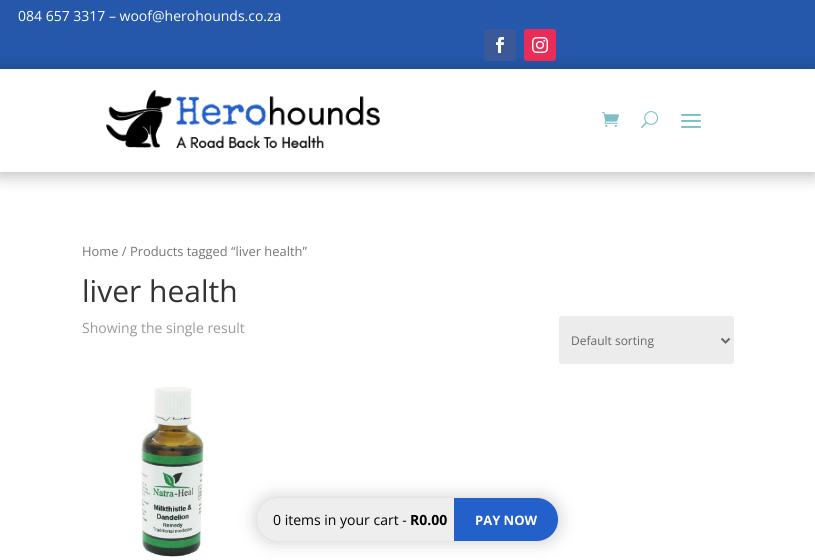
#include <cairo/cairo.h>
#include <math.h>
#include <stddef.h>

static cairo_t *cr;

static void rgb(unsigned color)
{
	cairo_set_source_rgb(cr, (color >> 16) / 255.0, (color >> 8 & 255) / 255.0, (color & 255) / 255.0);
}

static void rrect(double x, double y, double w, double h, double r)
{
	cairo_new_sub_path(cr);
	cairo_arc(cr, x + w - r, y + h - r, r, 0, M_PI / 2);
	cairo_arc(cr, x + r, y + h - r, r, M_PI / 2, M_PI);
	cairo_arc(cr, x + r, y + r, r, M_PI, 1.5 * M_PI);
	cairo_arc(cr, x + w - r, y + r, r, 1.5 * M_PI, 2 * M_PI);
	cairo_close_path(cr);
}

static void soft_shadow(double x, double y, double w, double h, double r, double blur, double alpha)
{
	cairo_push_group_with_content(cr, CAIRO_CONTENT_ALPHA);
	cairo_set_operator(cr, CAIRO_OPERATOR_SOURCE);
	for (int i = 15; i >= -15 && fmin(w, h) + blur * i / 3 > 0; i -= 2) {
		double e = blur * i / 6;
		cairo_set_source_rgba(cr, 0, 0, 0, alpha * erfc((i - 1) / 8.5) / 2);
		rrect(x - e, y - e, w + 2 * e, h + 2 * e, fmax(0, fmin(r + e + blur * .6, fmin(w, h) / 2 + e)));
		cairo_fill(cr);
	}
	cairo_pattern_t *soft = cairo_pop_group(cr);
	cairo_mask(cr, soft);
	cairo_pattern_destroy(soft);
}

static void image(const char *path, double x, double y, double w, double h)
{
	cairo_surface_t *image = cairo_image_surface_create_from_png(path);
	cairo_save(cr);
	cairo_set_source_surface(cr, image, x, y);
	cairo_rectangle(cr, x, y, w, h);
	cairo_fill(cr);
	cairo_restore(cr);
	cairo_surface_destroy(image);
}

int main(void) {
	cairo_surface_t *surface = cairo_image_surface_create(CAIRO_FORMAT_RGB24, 815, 560);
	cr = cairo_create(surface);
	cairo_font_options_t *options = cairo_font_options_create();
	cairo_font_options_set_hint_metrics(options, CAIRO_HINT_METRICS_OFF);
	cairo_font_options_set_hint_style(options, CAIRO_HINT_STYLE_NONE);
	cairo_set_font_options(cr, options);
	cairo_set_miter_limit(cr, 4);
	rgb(0xffffff);
	cairo_paint(cr);
	rgb(0x2558ab);
	cairo_rectangle(cr, 0, 0, 815, 69);
	cairo_fill(cr);
	cairo_save(cr);
	cairo_set_fill_rule(cr, CAIRO_FILL_RULE_EVEN_ODD);
	cairo_new_path(cr);
	cairo_move_to(cr, 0, 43);
	cairo_line_to(cr, 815, 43);
	cairo_line_to(cr, 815, 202);
	cairo_line_to(cr, 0, 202);
	cairo_close_path(cr);
	cairo_move_to(cr, 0, 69);
	cairo_line_to(cr, 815, 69);
	cairo_line_to(cr, 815, 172);
	cairo_line_to(cr, 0, 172);
	cairo_close_path(cr);
	cairo_clip(cr);
	rgb(0x000000);
	soft_shadow(0, 71, 815, 103, 0, 9, 0.3);
	cairo_restore(cr);
	rgb(0x3b5998);
	rrect(484, 29, 32, 32, 3);
	cairo_fill(cr);
	image("img/1.png", 496, 37, 8, 16);
	rgb(0xea2c59);
	rrect(524, 29, 32, 32, 3);
	cairo_fill(cr);
	image("img/2.png", 532, 37, 16, 16);
	image("img/3.png", 106, 90, 274, 58);
	image("img/4.png", 602, 112, 17, 15);
	image("img/5.png", 641, 111, 17, 18);
	image("img/6.png", 681, 113, 20, 15);
	rgb(0xececec);
	rrect(559, 316, 175, 48, 3);
	cairo_fill(cr);
	cairo_new_path(cr);
	cairo_move_to(cr, 721.5, 338.5);
	cairo_line_to(cr, 725.5, 342.5);
	cairo_line_to(cr, 729.5, 338.5);
	rgb(0x666666);
	cairo_stroke(cr);
	image("img/7.png", 141, 387, 66, 173);
	rgb(0x979797);
	soft_shadow(257, 498, 301, 43, 21.5, 9, 0.5);
	rgb(0xeeeeee);
	cairo_new_path(cr);
	cairo_move_to(cr, 278.5, 498);
	cairo_line_to(cr, 454, 498);
	cairo_line_to(cr, 454, 541);
	cairo_line_to(cr, 278.5, 541);
	cairo_curve_to(cr, 266.5, 541, 257, 531.5, 257, 519.5);
	cairo_curve_to(cr, 257, 507.5, 266.5, 498, 278.5, 498);
	cairo_close_path(cr);
	cairo_fill(cr);
	rgb(0x2360ca);
	cairo_new_path(cr);
	cairo_move_to(cr, 454, 498);
	cairo_line_to(cr, 536.5, 498);
	cairo_curve_to(cr, 548.5, 498, 558, 507.5, 558, 519.5);
	cairo_curve_to(cr, 558, 531.5, 548.5, 541, 536.5, 541);
	cairo_line_to(cr, 454, 541);
	cairo_close_path(cr);
	cairo_fill(cr);
	cairo_select_font_face(cr, "Open Sans", CAIRO_FONT_SLANT_NORMAL, CAIRO_FONT_WEIGHT_NORMAL);
	cairo_set_font_size(cr, 14);
	rgb(0xffffff);
	cairo_move_to(cr, 18, 21);
	cairo_show_text(cr, "084 657 3317 – woof@herohounds.co.za");
	cairo_set_font_size(cr, 12.9);
	rgb(0x767676);
	cairo_move_to(cr, 82, 256);
	cairo_show_text(cr, "Home / Products tagged “liver health”");
	cairo_set_font_size(cr, 30);
	rgb(0x333333);
	cairo_move_to(cr, 82, 302);
	cairo_show_text(cr, "liver health");
	cairo_set_font_size(cr, 14);
	rgb(0x999999);
	cairo_move_to(cr, 82, 333);
	cairo_show_text(cr, "Showing the single result");
	cairo_set_font_size(cr, 12);
	rgb(0x666666);
	cairo_move_to(cr, 571, 345);
	cairo_show_text(cr, "Default sorting");
	cairo_set_font_size(cr, 14);
	rgb(0x000000);
	cairo_move_to(cr, 273, 525);
	cairo_show_text(cr, "0 items in your cart -");
	cairo_select_font_face(cr, "Open Sans", CAIRO_FONT_SLANT_NORMAL, CAIRO_FONT_WEIGHT_BOLD);
	cairo_move_to(cr, 410, 525);
	cairo_show_text(cr, "R0.00");
	cairo_set_font_size(cr, 13);
	rgb(0xffffff);
	cairo_move_to(cr, 475, 525);
	cairo_show_text(cr, "PAY NOW");
	cairo_surface_write_to_png(surface, "page.png");
	cairo_font_options_destroy(options);
	cairo_destroy(cr);
	cairo_surface_destroy(surface);
	return 0;
}
